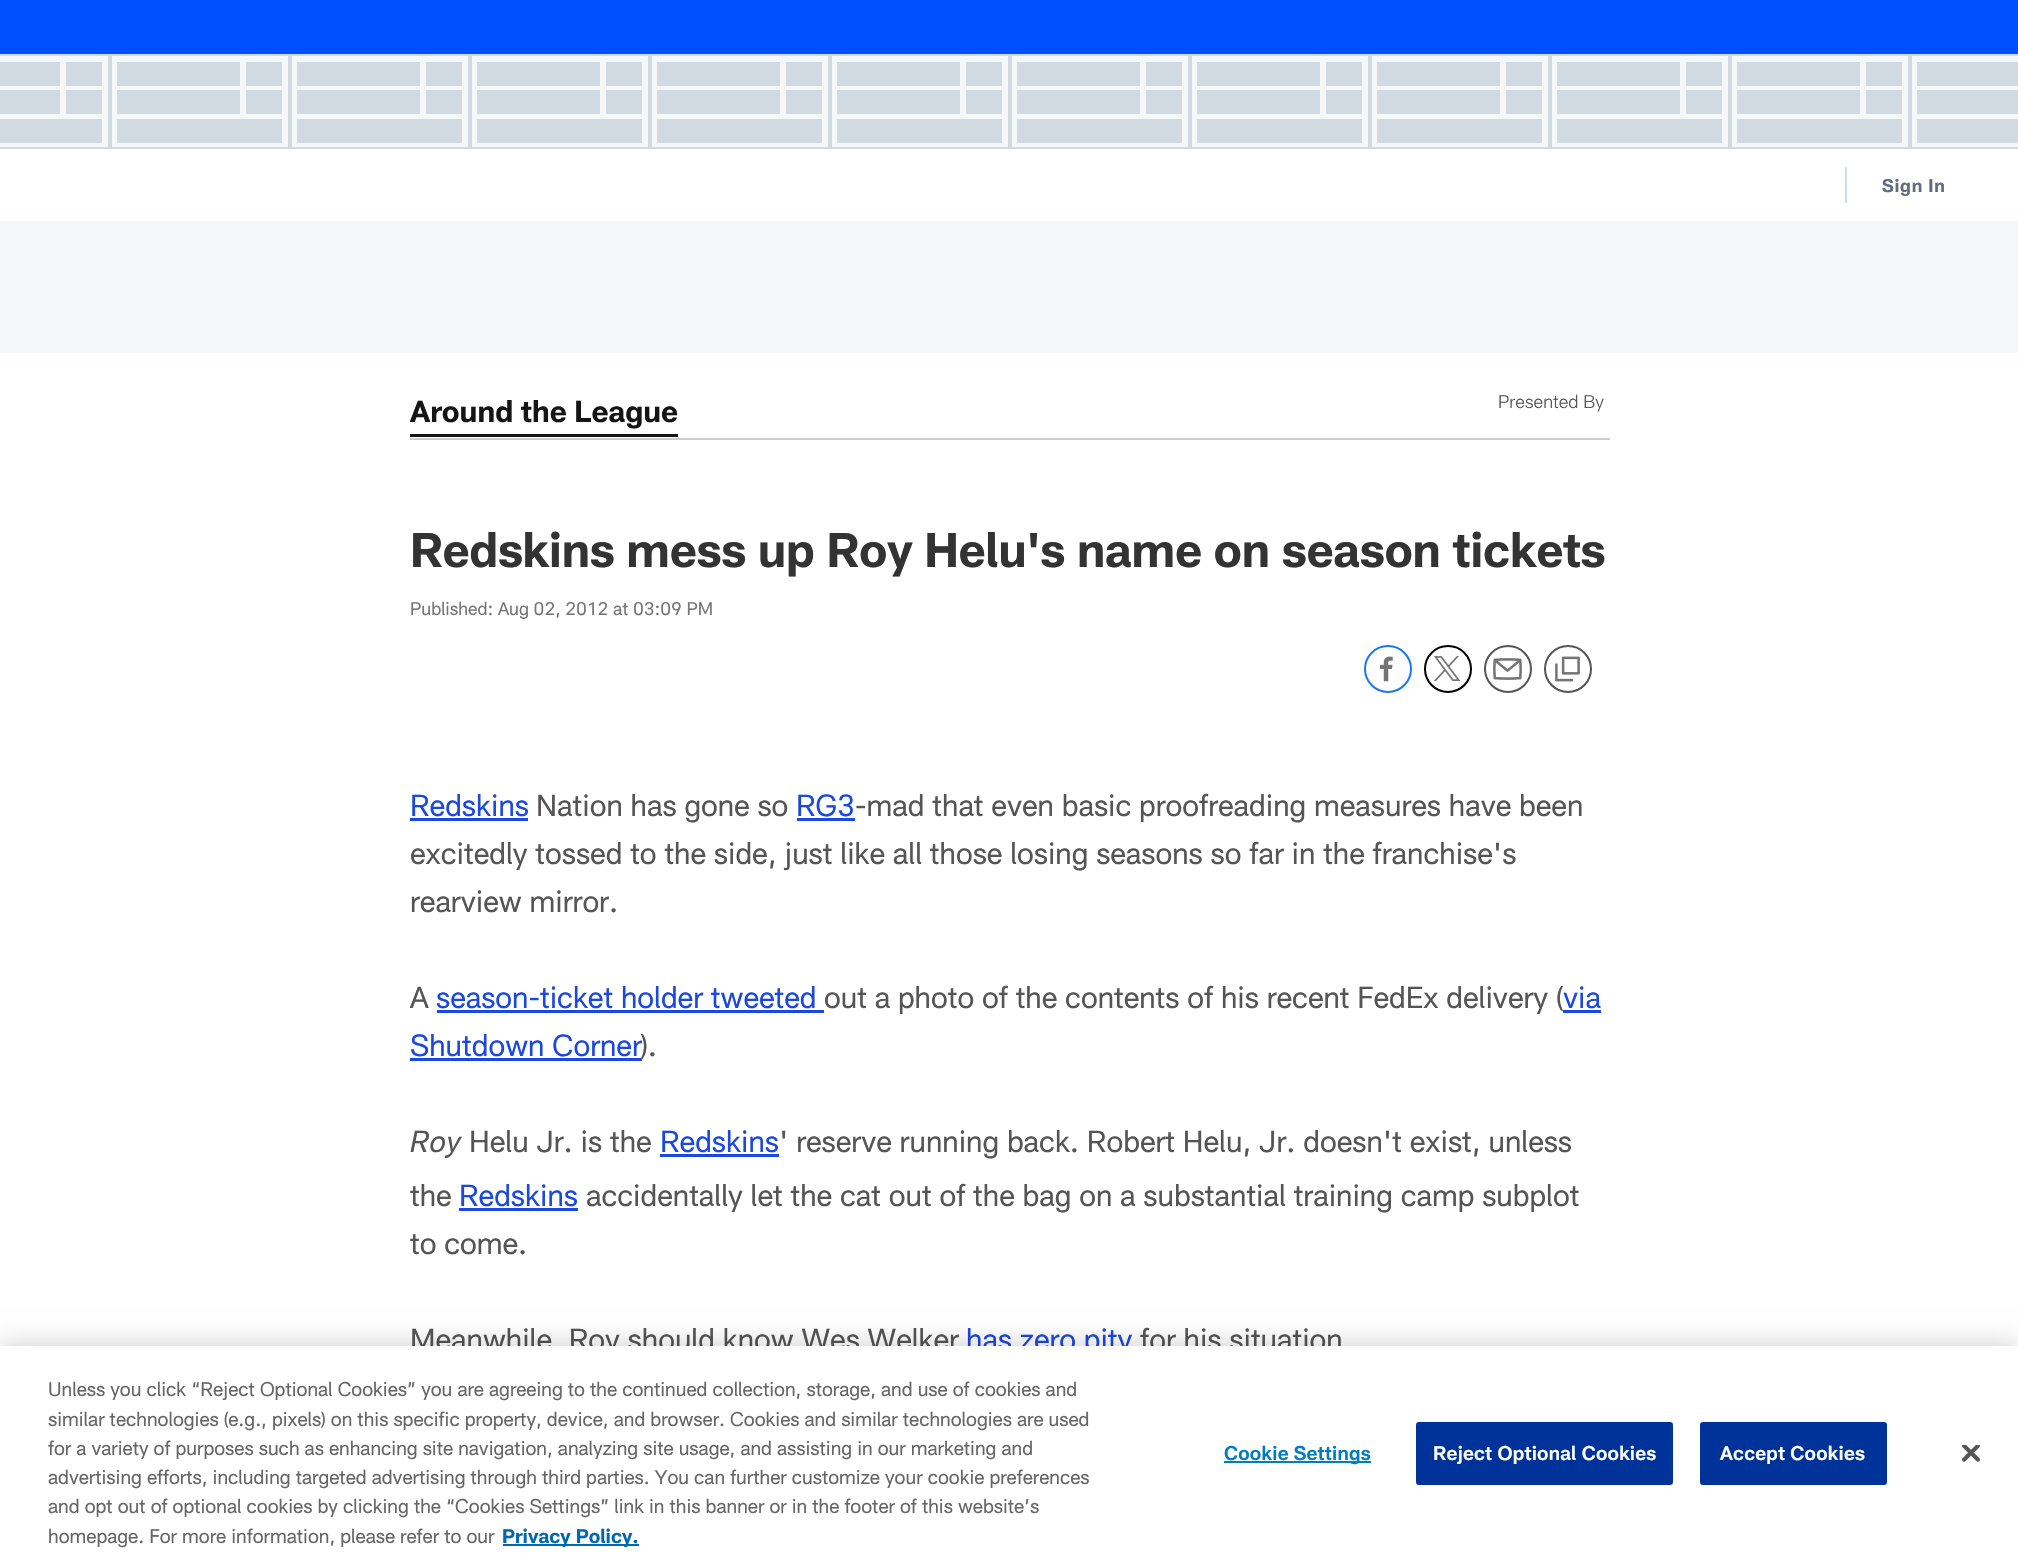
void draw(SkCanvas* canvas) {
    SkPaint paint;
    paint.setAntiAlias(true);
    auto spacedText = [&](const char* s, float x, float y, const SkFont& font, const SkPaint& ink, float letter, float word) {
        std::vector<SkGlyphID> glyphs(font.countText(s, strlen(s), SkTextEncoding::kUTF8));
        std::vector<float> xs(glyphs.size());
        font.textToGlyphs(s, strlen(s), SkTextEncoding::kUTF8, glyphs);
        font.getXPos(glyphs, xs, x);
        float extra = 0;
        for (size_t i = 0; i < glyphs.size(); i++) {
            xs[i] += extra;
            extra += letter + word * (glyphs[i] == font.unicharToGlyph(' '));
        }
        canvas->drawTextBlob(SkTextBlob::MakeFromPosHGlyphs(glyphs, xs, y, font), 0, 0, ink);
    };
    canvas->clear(0xFFF4F8F8);
    paint.setColor(0xFFFFFFFF);
    canvas->drawRect(SkRect::MakeXYWH(0, 149, 2018, 72), paint);
    paint.setColor(0xFF004FFF);
    canvas->drawRect(SkRect::MakeXYWH(0, 0, 2018, 54), paint);
    paint.setStyle(SkPaint::kStroke_Style);
    paint.setStrokeWidth(2);
    paint.setColor(0xFFD2DAE1);
    canvas->drawRect(SkRect::MakeXYWH(-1, 55, 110, 93), paint);
    paint.setStyle(SkPaint::kFill_Style);
    canvas->drawRect(SkRect::MakeXYWH(0, 62, 60, 24), paint);
    canvas->drawRect(SkRect::MakeXYWH(66, 62, 36, 24), paint);
    canvas->drawRect(SkRect::MakeXYWH(0, 90, 60, 24), paint);
    canvas->drawRect(SkRect::MakeXYWH(66, 90, 36, 24), paint);
    canvas->drawRect(SkRect::MakeXYWH(0, 119, 102, 24), paint);
    paint.setStyle(SkPaint::kStroke_Style);
    canvas->drawRect(SkRect::MakeXYWH(111, 55, 178, 93), paint);
    paint.setStyle(SkPaint::kFill_Style);
    canvas->drawRect(SkRect::MakeXYWH(117, 62, 123, 24), paint);
    canvas->drawRect(SkRect::MakeXYWH(246, 62, 36, 24), paint);
    canvas->drawRect(SkRect::MakeXYWH(117, 90, 123, 24), paint);
    canvas->drawRect(SkRect::MakeXYWH(246, 90, 36, 24), paint);
    canvas->drawRect(SkRect::MakeXYWH(117, 119, 165, 24), paint);
    paint.setStyle(SkPaint::kStroke_Style);
    canvas->drawRect(SkRect::MakeXYWH(291, 55, 178, 93), paint);
    paint.setStyle(SkPaint::kFill_Style);
    canvas->drawRect(SkRect::MakeXYWH(297, 62, 123, 24), paint);
    canvas->drawRect(SkRect::MakeXYWH(426, 62, 36, 24), paint);
    canvas->drawRect(SkRect::MakeXYWH(297, 90, 123, 24), paint);
    canvas->drawRect(SkRect::MakeXYWH(426, 90, 36, 24), paint);
    canvas->drawRect(SkRect::MakeXYWH(297, 119, 165, 24), paint);
    paint.setStyle(SkPaint::kStroke_Style);
    canvas->drawRect(SkRect::MakeXYWH(471, 55, 178, 93), paint);
    paint.setStyle(SkPaint::kFill_Style);
    canvas->drawRect(SkRect::MakeXYWH(477, 62, 123, 24), paint);
    canvas->drawRect(SkRect::MakeXYWH(606, 62, 36, 24), paint);
    canvas->drawRect(SkRect::MakeXYWH(477, 90, 123, 24), paint);
    canvas->drawRect(SkRect::MakeXYWH(606, 90, 36, 24), paint);
    canvas->drawRect(SkRect::MakeXYWH(477, 119, 165, 24), paint);
    paint.setStyle(SkPaint::kStroke_Style);
    canvas->drawRect(SkRect::MakeXYWH(651, 55, 178, 93), paint);
    paint.setStyle(SkPaint::kFill_Style);
    canvas->drawRect(SkRect::MakeXYWH(657, 62, 123, 24), paint);
    canvas->drawRect(SkRect::MakeXYWH(786, 62, 36, 24), paint);
    canvas->drawRect(SkRect::MakeXYWH(657, 90, 123, 24), paint);
    canvas->drawRect(SkRect::MakeXYWH(786, 90, 36, 24), paint);
    canvas->drawRect(SkRect::MakeXYWH(657, 119, 165, 24), paint);
    paint.setStyle(SkPaint::kStroke_Style);
    canvas->drawRect(SkRect::MakeXYWH(831, 55, 178, 93), paint);
    paint.setStyle(SkPaint::kFill_Style);
    canvas->drawRect(SkRect::MakeXYWH(837, 62, 123, 24), paint);
    canvas->drawRect(SkRect::MakeXYWH(966, 62, 36, 24), paint);
    canvas->drawRect(SkRect::MakeXYWH(837, 90, 123, 24), paint);
    canvas->drawRect(SkRect::MakeXYWH(966, 90, 36, 24), paint);
    canvas->drawRect(SkRect::MakeXYWH(837, 119, 165, 24), paint);
    paint.setStyle(SkPaint::kStroke_Style);
    canvas->drawRect(SkRect::MakeXYWH(1011, 55, 178, 93), paint);
    paint.setStyle(SkPaint::kFill_Style);
    canvas->drawRect(SkRect::MakeXYWH(1017, 62, 123, 24), paint);
    canvas->drawRect(SkRect::MakeXYWH(1146, 62, 36, 24), paint);
    canvas->drawRect(SkRect::MakeXYWH(1017, 90, 123, 24), paint);
    canvas->drawRect(SkRect::MakeXYWH(1146, 90, 36, 24), paint);
    canvas->drawRect(SkRect::MakeXYWH(1017, 119, 165, 24), paint);
    paint.setStyle(SkPaint::kStroke_Style);
    canvas->drawRect(SkRect::MakeXYWH(1191, 55, 178, 93), paint);
    paint.setStyle(SkPaint::kFill_Style);
    canvas->drawRect(SkRect::MakeXYWH(1197, 62, 123, 24), paint);
    canvas->drawRect(SkRect::MakeXYWH(1326, 62, 36, 24), paint);
    canvas->drawRect(SkRect::MakeXYWH(1197, 90, 123, 24), paint);
    canvas->drawRect(SkRect::MakeXYWH(1326, 90, 36, 24), paint);
    canvas->drawRect(SkRect::MakeXYWH(1197, 119, 165, 24), paint);
    paint.setStyle(SkPaint::kStroke_Style);
    canvas->drawRect(SkRect::MakeXYWH(1371, 55, 178, 93), paint);
    paint.setStyle(SkPaint::kFill_Style);
    canvas->drawRect(SkRect::MakeXYWH(1377, 62, 123, 24), paint);
    canvas->drawRect(SkRect::MakeXYWH(1506, 62, 36, 24), paint);
    canvas->drawRect(SkRect::MakeXYWH(1377, 90, 123, 24), paint);
    canvas->drawRect(SkRect::MakeXYWH(1506, 90, 36, 24), paint);
    canvas->drawRect(SkRect::MakeXYWH(1377, 119, 165, 24), paint);
    paint.setStyle(SkPaint::kStroke_Style);
    canvas->drawRect(SkRect::MakeXYWH(1551, 55, 178, 93), paint);
    paint.setStyle(SkPaint::kFill_Style);
    canvas->drawRect(SkRect::MakeXYWH(1557, 62, 123, 24), paint);
    canvas->drawRect(SkRect::MakeXYWH(1686, 62, 36, 24), paint);
    canvas->drawRect(SkRect::MakeXYWH(1557, 90, 123, 24), paint);
    canvas->drawRect(SkRect::MakeXYWH(1686, 90, 36, 24), paint);
    canvas->drawRect(SkRect::MakeXYWH(1557, 119, 165, 24), paint);
    paint.setStyle(SkPaint::kStroke_Style);
    canvas->drawRect(SkRect::MakeXYWH(1731, 55, 178, 93), paint);
    paint.setStyle(SkPaint::kFill_Style);
    canvas->drawRect(SkRect::MakeXYWH(1737, 62, 123, 24), paint);
    canvas->drawRect(SkRect::MakeXYWH(1866, 62, 36, 24), paint);
    canvas->drawRect(SkRect::MakeXYWH(1737, 90, 123, 24), paint);
    canvas->drawRect(SkRect::MakeXYWH(1866, 90, 36, 24), paint);
    canvas->drawRect(SkRect::MakeXYWH(1737, 119, 165, 24), paint);
    paint.setStyle(SkPaint::kStroke_Style);
    canvas->drawRect(SkRect::MakeXYWH(1911, 55, 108, 93), paint);
    paint.setStyle(SkPaint::kFill_Style);
    canvas->drawRect(SkRect::MakeXYWH(1917, 62, 101, 24), paint);
    canvas->drawRect(SkRect::MakeXYWH(1917, 90, 101, 24), paint);
    canvas->drawRect(SkRect::MakeXYWH(1917, 119, 101, 24), paint);
    canvas->drawRect(SkRect::MakeXYWH(1845, 167, 2, 36), paint);
    SkFont font1(fontMgr->matchFamilyStyle("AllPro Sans", SkFontStyle::Bold()), 18);
    font1.setSubpixel(true);
    paint.setColor(0xFF626C80);
    spacedText("Sign In", 1882, 192, font1, paint, 0.75f, 0);
    paint.setColor(0xFFFFFFFF);
    canvas->drawRect(SkRect::MakeXYWH(0, 353, 2018, 993), paint);
    paint.setColor(0xFFCCCCCC);
    canvas->drawRect(SkRect::MakeXYWH(410, 438, 1200, 2), paint);
    paint.setColor(0xFF151515);
    canvas->drawRect(SkRect::MakeXYWH(410, 434, 268, 3), paint);
    SkFont font2(fontMgr->matchFamilyStyle("AllPro Sans", SkFontStyle::Bold()), 30);
    font2.setSubpixel(true);
    canvas->drawString("Around the League", 410, 422, font2, paint);
    SkFont font3(fontMgr->matchFamilyStyle("AllPro Sans", SkFontStyle(300, SkFontStyle::kNormal_Width, SkFontStyle::kUpright_Slant)), 18);
    font3.setSubpixel(true);
    paint.setColor(0xFF555555);
    canvas->drawString("Presented By", 1498, 408, font3, paint);
    SkFont font4(fontMgr->matchFamilyStyle("AllPro Sans", SkFontStyle::Bold()), 48);
    font4.setSubpixel(true);
    paint.setColor(0xFF333333);
    spacedText("Redskins mess up Roy Helu's name on season tickets", 410, 567, font4, paint, -0.3f, 0);
    SkFont font5(fontMgr->matchFamilyStyle("AllPro Sans", SkFontStyle::Normal()), 18);
    font5.setSubpixel(true);
    paint.setColor(0xFF757575);
    canvas->drawString("Published: Aug 02, 2012 at 03:09 PM", 410, 615, font5, paint);
    paint.setStyle(SkPaint::kStroke_Style);
    paint.setColor(0xFF1877F2);
    canvas->drawCircle(1388, 669, 23, paint);
    canvas->drawImageRect(SkImages::DeferredFromEncodedData(SkData::MakeFromFileName("img1.png")), SkRect::MakeXYWH(1380, 656, 13, 26), SkSamplingOptions());
    paint.setColor(0xFF000000);
    canvas->drawCircle(1448, 669, 23, paint);
    canvas->drawImageRect(SkImages::DeferredFromEncodedData(SkData::MakeFromFileName("img2.png")), SkRect::MakeXYWH(1433, 656, 28, 25), SkSamplingOptions());
    paint.setColor(0xFF555555);
    canvas->drawCircle(1508, 669, 23, paint);
    canvas->drawImageRect(SkImages::DeferredFromEncodedData(SkData::MakeFromFileName("img3.png")), SkRect::MakeXYWH(1493, 658, 29, 22), SkSamplingOptions());
    canvas->drawCircle(1568, 669, 23, paint);
    canvas->drawImageRect(SkImages::DeferredFromEncodedData(SkData::MakeFromFileName("img4.png")), SkRect::MakeXYWH(1555, 656, 25, 26), SkSamplingOptions());
    SkFont font6(fontMgr->matchFamilyStyle("AllPro Sans", SkFontStyle::Normal()), 30);
    font6.setSubpixel(true);
    paint.setStyle(SkPaint::kFill_Style);
    paint.setColor(0xFF1B48E0);
    canvas->drawString("Redskins", 410, 816, font6, paint);
    canvas->drawRect(SkRect::MakeXYWH(410, 818, 118, 3), paint);
    paint.setColor(0xFF555555);
    canvas->drawString("Nation has gone so", 536, 816, font6, paint);
    paint.setColor(0xFF1B48E0);
    canvas->drawString("RG3", 796, 816, font6, paint);
    canvas->drawRect(SkRect::MakeXYWH(797, 818, 58, 3), paint);
    paint.setColor(0xFF555555);
    canvas->drawString("-mad that even basic proofreading measures have been", 855, 816, font6, paint);
    canvas->drawString("excitedly tossed to the side, just like all those losing seasons so far in the franchise's", 410, 864, font6, paint);
    canvas->drawString("rearview mirror.", 410, 912, font6, paint);
    canvas->drawString("A", 410, 1008, font6, paint);
    paint.setColor(0xFF1B48E0);
    canvas->drawString("season-ticket holder tweeted", 436, 1008, font6, paint);
    canvas->drawRect(SkRect::MakeXYWH(437, 1010, 387, 3), paint);
    paint.setColor(0xFF555555);
    canvas->drawString("out a photo of the contents of his recent FedEx delivery (", 824, 1008, font6, paint);
    paint.setColor(0xFF1B48E0);
    canvas->drawString("via", 1563, 1008, font6, paint);
    canvas->drawRect(SkRect::MakeXYWH(1563, 1010, 38, 3), paint);
    canvas->drawString("Shutdown Corner", 410, 1056, font6, paint);
    canvas->drawRect(SkRect::MakeXYWH(410, 1058, 232, 3), paint);
    paint.setColor(0xFF555555);
    canvas->drawString(").", 641, 1056, font6, paint);
    SkFont font7(fontMgr->matchFamilyStyle("AllPro Sans", SkFontStyle::Italic()), 30);
    font7.setSubpixel(true);
    canvas->drawString("Roy", 410, 1152, font7, paint);
    canvas->drawString("Helu Jr. is the", 469, 1152, font6, paint);
    paint.setColor(0xFF1B48E0);
    canvas->drawString("Redskins", 660, 1152, font6, paint);
    canvas->drawRect(SkRect::MakeXYWH(660, 1154, 119, 3), paint);
    paint.setColor(0xFF555555);
    canvas->drawString("' reserve running back. Robert Helu, Jr. doesn't exist, unless", 779, 1152, font6, paint);
    canvas->drawString("the", 410, 1206, font6, paint);
    paint.setColor(0xFF1B48E0);
    canvas->drawString("Redskins", 459, 1206, font6, paint);
    canvas->drawRect(SkRect::MakeXYWH(459, 1208, 119, 3), paint);
    paint.setColor(0xFF555555);
    canvas->drawString("accidentally let the cat out of the bag on a substantial training camp subplot", 586, 1206, font6, paint);
    canvas->drawString("to come.", 410, 1254, font6, paint);
    canvas->drawString("Meanwhile, Roy should know Wes Welker", 410, 1350, font6, paint);
    paint.setColor(0xFF1B48E0);
    canvas->drawString("has zero pity", 966, 1350, font6, paint);
    paint.setColor(0xFF555555);
    canvas->drawString("for his situation", 1140, 1350, font6, paint);
    paint.setColor(0x33000000);
    paint.setMaskFilter(SkMaskFilter::MakeBlur(kNormal_SkBlurStyle, 13.5f));
    canvas->drawRect(SkRect::MakeXYWH(0, 1346, 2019, 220), paint);
    paint.setMaskFilter(nullptr);
    paint.setColor(0xFFFFFFFF);
    canvas->drawRect(SkRect::MakeXYWH(0, 1346, 2018, 219), paint);
    SkFont font8(fontMgr->matchFamilyStyle("AllPro Sans", SkFontStyle::Normal()), 19.5f);
    font8.setSubpixel(true);
    paint.setColor(0xFF666666);
    canvas->drawString("Unless you click “Reject Optional Cookies” you are agreeing to the continued collection, storage, and use of cookies and", 48, 1396, font8, paint);
    canvas->drawString("similar technologies (e.g., pixels) on this specific property, device, and browser. Cookies and similar technologies are used", 48, 1426, font8, paint);
    canvas->drawString("for a variety of purposes such as enhancing site navigation, analyzing site usage, and assisting in our marketing and", 48, 1455, font8, paint);
    canvas->drawString("advertising efforts, including targeted advertising through third parties. You can further customize your cookie preferences", 48, 1484, font8, paint);
    canvas->drawString("and opt out of optional cookies by clicking the “Cookies Settings” link in this banner or in the footer of this website’s", 48, 1513, font8, paint);
    canvas->drawString("homepage. For more information, please refer to our", 48, 1543, font8, paint);
    paint.setColor(0xFF0067B1);
    canvas->drawRect(SkRect::MakeXYWH(503, 1544, 136, 2), paint);
    SkFont font9(fontMgr->matchFamilyStyle("AllPro Sans", SkFontStyle::Bold()), 19.5f);
    font9.setSubpixel(true);
    canvas->drawString("Privacy Policy.", 502, 1543, font9, paint);
    paint.setColor(0xFF007DC3);
    canvas->drawRect(SkRect::MakeXYWH(1224, 1461, 147, 2), paint);
    SkFont font10(fontMgr->matchFamilyStyle("AllPro Sans", SkFontStyle(600, SkFontStyle::kNormal_Width, SkFontStyle::kUpright_Slant)), 19.5f);
    font10.setSubpixel(true);
    spacedText("Cookie Settings", 1224, 1460, font10, paint, 0.2f, 0);
    paint.setColor(0xFF003399);
    canvas->drawRoundRect(SkRect::MakeXYWH(1417, 1423, 255, 61), 2, 2, paint);
    paint.setStyle(SkPaint::kStroke_Style);
    canvas->drawRoundRect(SkRect::MakeXYWH(1417, 1423, 255, 61), 2, 2, paint);
    paint.setStyle(SkPaint::kFill_Style);
    paint.setColor(0xFFFFFFFF);
    spacedText("Reject Optional Cookies", 1433, 1460, font10, paint, 0.2f, 0);
    paint.setColor(0xFF003399);
    canvas->drawRoundRect(SkRect::MakeXYWH(1701, 1423, 185, 61), 2, 2, paint);
    paint.setStyle(SkPaint::kStroke_Style);
    canvas->drawRoundRect(SkRect::MakeXYWH(1701, 1423, 185, 61), 2, 2, paint);
    paint.setStyle(SkPaint::kFill_Style);
    paint.setColor(0xFFFFFFFF);
    spacedText("Accept Cookies", 1720, 1460, font10, paint, 0.2f, 0);
    canvas->drawImageRect(SkImages::DeferredFromEncodedData(SkData::MakeFromFileName("img5.png")), SkRect::MakeXYWH(1962, 1445, 18, 17), SkSamplingOptions());
}
